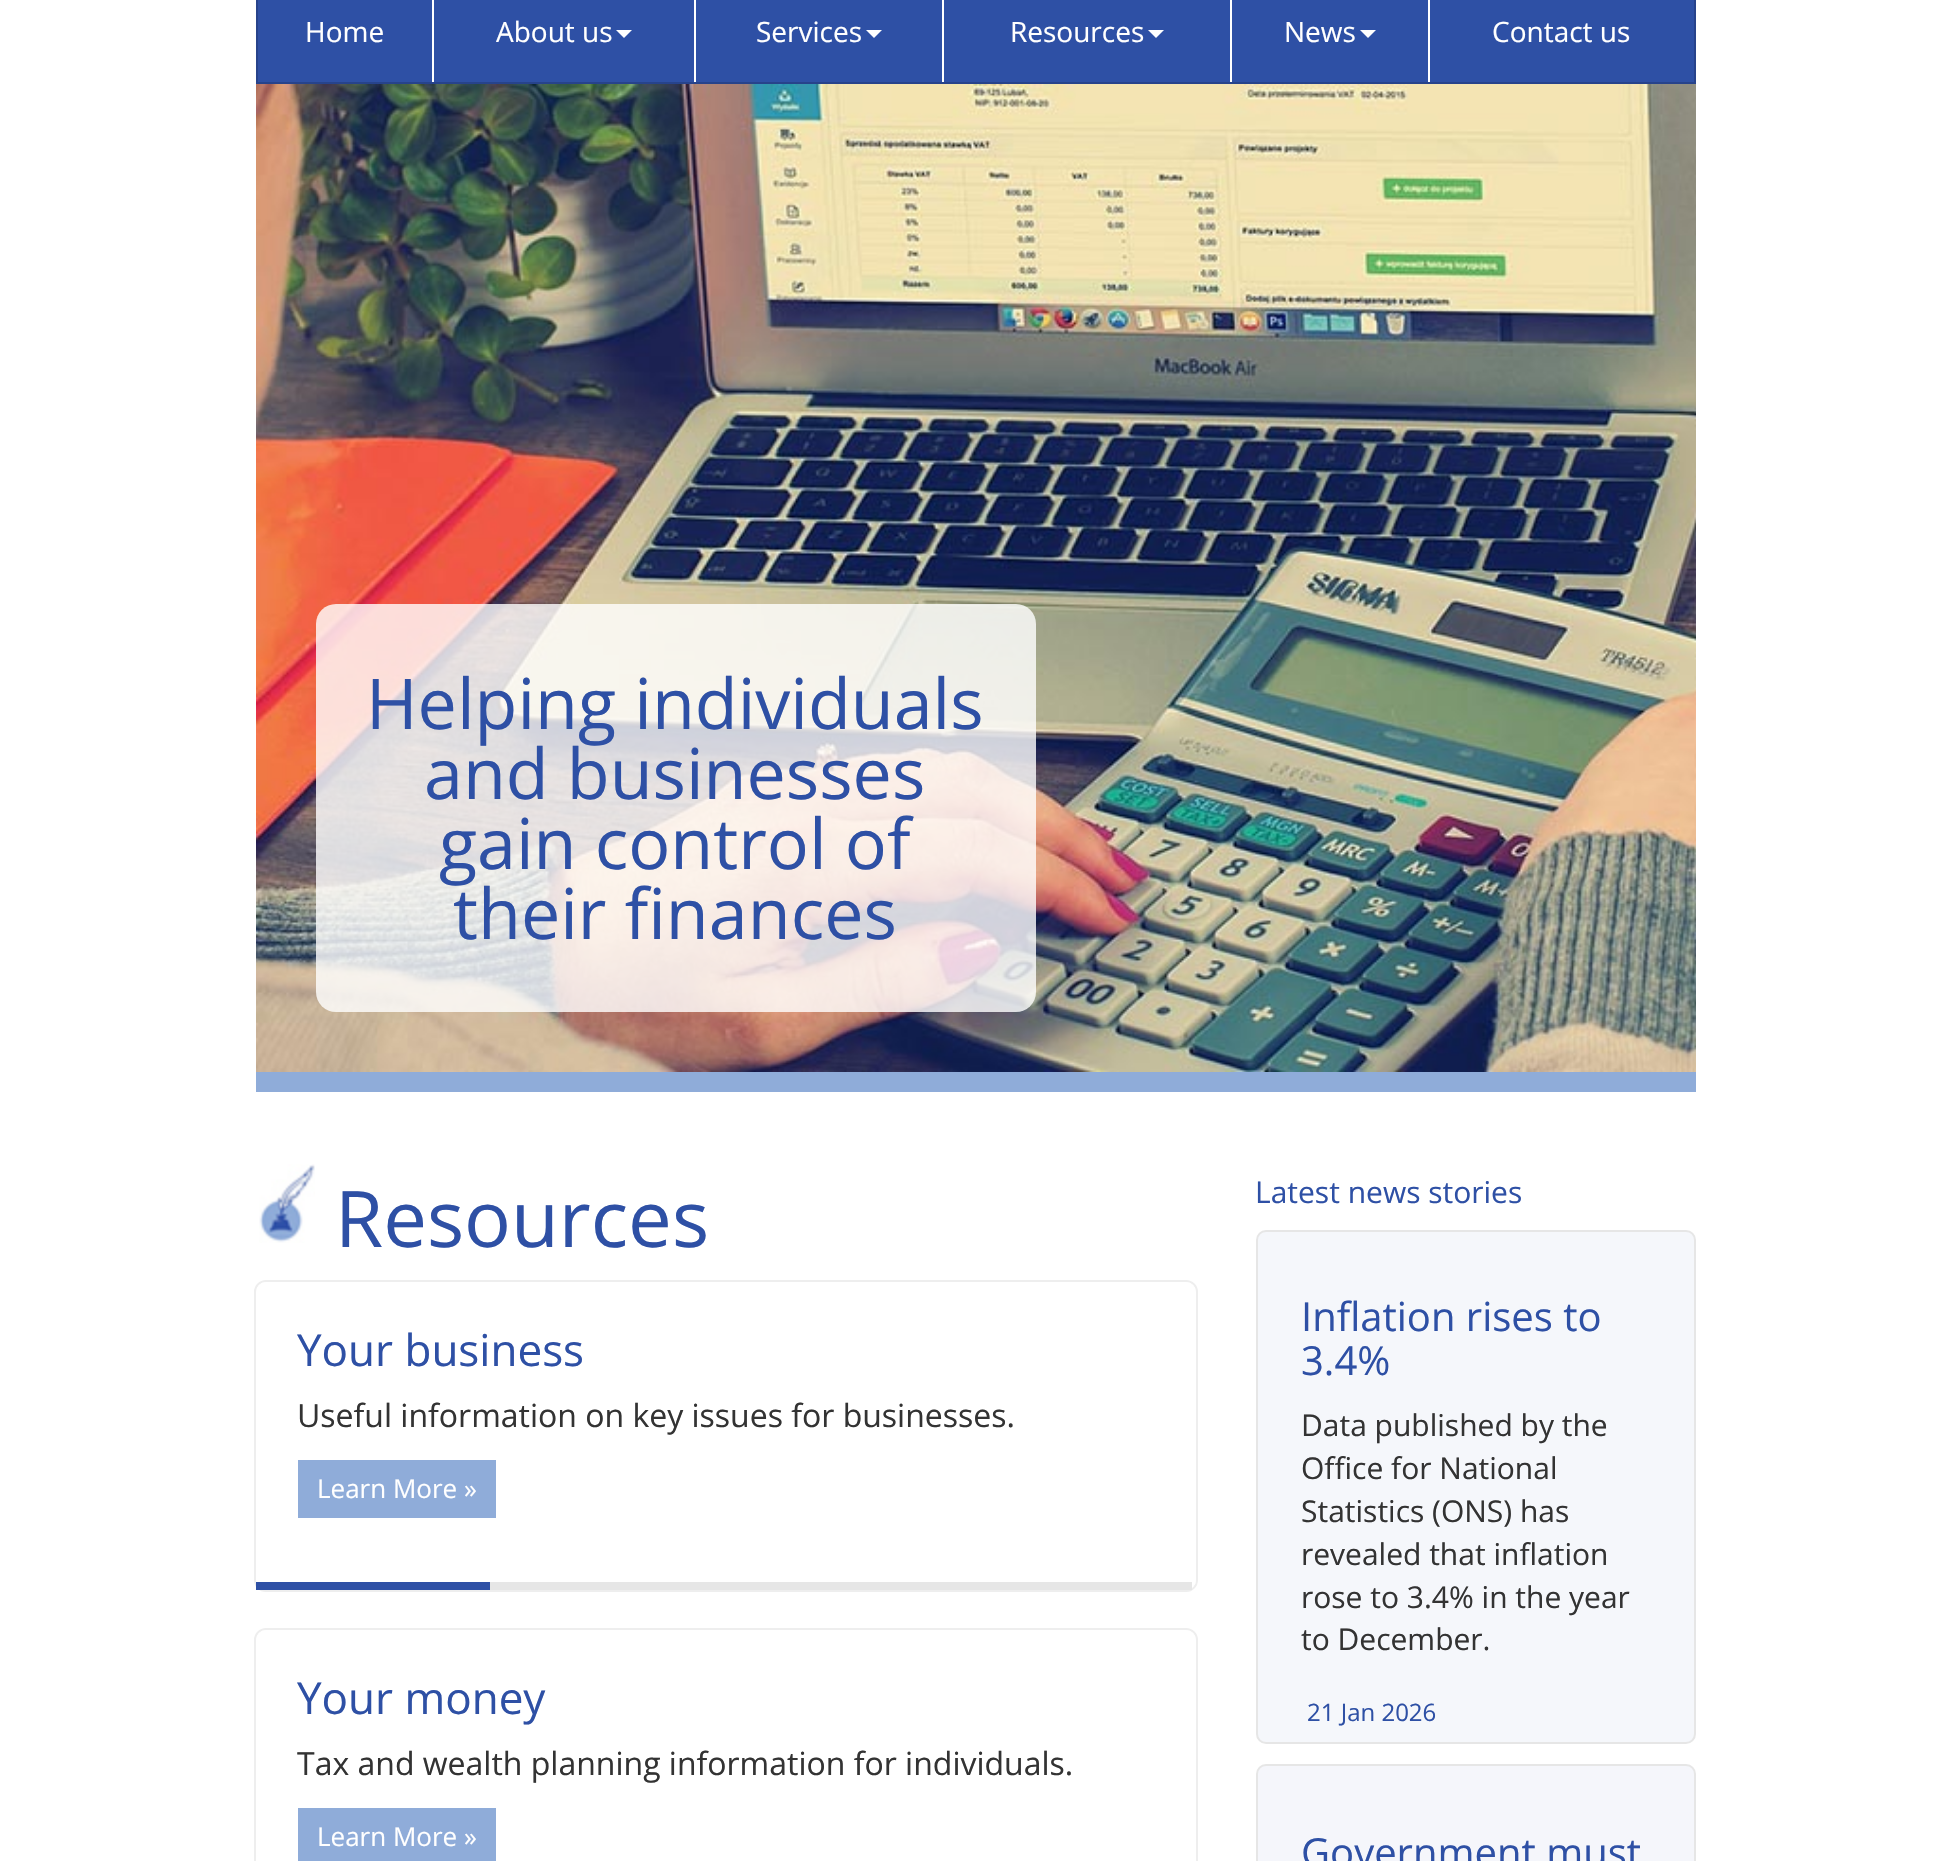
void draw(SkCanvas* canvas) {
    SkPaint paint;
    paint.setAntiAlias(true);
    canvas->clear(0xFFFFFFFF);
    paint.setColor(0xFF2E50A5);
    canvas->drawRect(SkRect::MakeXYWH(257, -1, 1438, 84), paint);
    paint.setStyle(SkPaint::kStroke_Style);
    paint.setStrokeWidth(2);
    paint.setColor(0xFF27438B);
    canvas->drawRect(SkRect::MakeXYWH(257, -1, 1438, 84), paint);
    SkFont font1(fontMgr->matchFamilyStyle("Open Sans", SkFontStyle::Normal()), 28);
    font1.setSubpixel(true);
    paint.setStyle(SkPaint::kFill_Style);
    paint.setColor(0xFFFFFFFF);
    canvas->drawString("Home", 305, 42, font1, paint);
    canvas->drawRect(SkRect::MakeXYWH(432, 0, 2, 82), paint);
    canvas->drawString("About us", 496, 42, font1, paint);
    canvas->drawPath(SkPathBuilder().moveTo(616, 30).lineTo(632, 30).lineTo(624, 38).close().detach(), paint);
    canvas->drawRect(SkRect::MakeXYWH(694, 0, 2, 82), paint);
    canvas->drawString("Services", 756, 42, font1, paint);
    canvas->drawPath(SkPathBuilder().moveTo(866, 30).lineTo(882, 30).lineTo(874, 38).close().detach(), paint);
    canvas->drawRect(SkRect::MakeXYWH(942, 0, 2, 82), paint);
    canvas->drawString("Resources", 1010, 42, font1, paint);
    canvas->drawPath(SkPathBuilder().moveTo(1148, 30).lineTo(1164, 30).lineTo(1156, 38).close().detach(), paint);
    canvas->drawRect(SkRect::MakeXYWH(1230, 0, 2, 82), paint);
    canvas->drawString("News", 1284, 42, font1, paint);
    canvas->drawPath(SkPathBuilder().moveTo(1360, 30).lineTo(1376, 30).lineTo(1368, 38).close().detach(), paint);
    canvas->drawRect(SkRect::MakeXYWH(1428, 0, 2, 82), paint);
    canvas->drawString("Contact us", 1492, 42, font1, paint);
    canvas->drawImageRect(SkImages::DeferredFromEncodedData(SkData::MakeFromFileName("img1.png")), SkRect::MakeXYWH(256, 84, 1440, 988), SkSamplingOptions());
    paint.setColor(0xFF8FACD9);
    canvas->drawRect(SkRect::MakeXYWH(256, 1072, 1440, 20), paint);
    paint.setColor(0xCCFFFFFF);
    canvas->drawRoundRect(SkRect::MakeXYWH(316, 604, 720, 408), 20, 20, paint);
    SkFont font2(fontMgr->matchFamilyStyle("Open Sans", SkFontStyle::Normal()), 70);
    font2.setSubpixel(true);
    paint.setColor(0xFF2E50A5);
    canvas->drawString("Helping individuals", 366, 729, font2, paint);
    canvas->drawString("and businesses", 424, 799, font2, paint);
    canvas->drawString("gain control of", 439, 869, font2, paint);
    canvas->drawString("their finances", 453, 939, font2, paint);
    canvas->drawImageRect(SkImages::DeferredFromEncodedData(SkData::MakeFromFileName("img2.png")), SkRect::MakeXYWH(259, 1164, 56, 79), SkSamplingOptions());
    SkFont font3(fontMgr->matchFamilyStyle("Open Sans", SkFontStyle::Normal()), 78);
    font3.setSubpixel(true);
    canvas->drawString("Resources", 335, 1247, font3, paint);
    paint.setStyle(SkPaint::kStroke_Style);
    paint.setColor(0xFFEEEEEE);
    canvas->drawRoundRect(SkRect::MakeXYWH(255, 1281, 942, 310), 11, 11, paint);
    paint.setStyle(SkPaint::kFill_Style);
    paint.setColor(0xFFFFFFFF);
    canvas->drawRoundRect(SkRect::MakeXYWH(256, 1282, 940, 308), 10, 10, paint);
    paint.setColor(0xFFE6E6E6);
    canvas->drawRect(SkRect::MakeXYWH(490, 1582, 702, 8), paint);
    SkFont font4(fontMgr->matchFamilyStyle("Open Sans", SkFontStyle::Normal()), 44);
    font4.setSubpixel(true);
    paint.setColor(0xFF2E50A5);
    canvas->drawString("Your business", 297, 1366, font4, paint);
    SkFont font5(fontMgr->matchFamilyStyle("Open Sans", SkFontStyle::Normal()), 32);
    font5.setSubpixel(true);
    paint.setColor(0xFF333333);
    canvas->drawString("Useful information on key issues for businesses.", 297, 1427, font5, paint);
    paint.setColor(0xFF8FACD9);
    canvas->drawRect(SkRect::MakeXYWH(298, 1460, 198, 58), paint);
    SkFont font6(fontMgr->matchFamilyStyle("Open Sans", SkFontStyle::Normal()), 26);
    font6.setSubpixel(true);
    paint.setColor(0xFFFFFFFF);
    canvas->drawString("Learn More »", 317, 1498, font6, paint);
    paint.setColor(0xFF2E50A5);
    canvas->drawRect(SkRect::MakeXYWH(256, 1582, 234, 8), paint);
    paint.setStyle(SkPaint::kStroke_Style);
    paint.setColor(0xFFEEEEEE);
    canvas->drawRoundRect(SkRect::MakeXYWH(255, 1629, 942, 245), 11, 11, paint);
    paint.setStyle(SkPaint::kFill_Style);
    paint.setColor(0xFFFFFFFF);
    canvas->drawRoundRect(SkRect::MakeXYWH(256, 1630, 940, 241), 10, 10, paint);
    paint.setColor(0xFF2E50A5);
    canvas->drawString("Your money", 297, 1714, font4, paint);
    paint.setColor(0xFF333333);
    canvas->drawString("Tax and wealth planning information for individuals.", 297, 1775, font5, paint);
    paint.setColor(0xFF8FACD9);
    canvas->drawRect(SkRect::MakeXYWH(298, 1808, 198, 53), paint);
    paint.setColor(0xFFFFFFFF);
    canvas->drawString("Learn More »", 317, 1846, font6, paint);
    SkFont font7(fontMgr->matchFamilyStyle("Open Sans", SkFontStyle::Normal()), 30);
    font7.setSubpixel(true);
    paint.setColor(0xFF2E50A5);
    canvas->drawString("Latest news stories", 1255, 1203, font7, paint);
    paint.setColor(0xFFF5F7FB);
    canvas->drawRoundRect(SkRect::MakeXYWH(1257, 1231, 438, 512), 9, 9, paint);
    paint.setStyle(SkPaint::kStroke_Style);
    paint.setColor(0xFFE6E6E6);
    canvas->drawRoundRect(SkRect::MakeXYWH(1257, 1231, 438, 512), 9, 9, paint);
    SkFont font8(fontMgr->matchFamilyStyle("Open Sans", SkFontStyle::Normal()), 40);
    font8.setSubpixel(true);
    paint.setStyle(SkPaint::kFill_Style);
    paint.setColor(0xFF2E50A5);
    canvas->drawString("Inflation rises to", 1301, 1331, font8, paint);
    canvas->drawString("3.4%", 1301, 1375, font8, paint);
    paint.setColor(0xFF333333);
    canvas->drawString("Data published by the", 1301, 1436, font7, paint);
    canvas->drawString("Office for National", 1301, 1479, font7, paint);
    canvas->drawString("Statistics (ONS) has", 1301, 1522, font7, paint);
    canvas->drawString("revealed that inflation", 1301, 1565, font7, paint);
    canvas->drawString("rose to 3.4% in the year", 1301, 1608, font7, paint);
    canvas->drawString("to December.", 1301, 1650, font7, paint);
    SkFont font9(fontMgr->matchFamilyStyle("Open Sans", SkFontStyle::Normal()), 24);
    font9.setSubpixel(true);
    paint.setColor(0xFF2E50A5);
    canvas->drawString("21 Jan 2026", 1307, 1721, font9, paint);
    paint.setColor(0xFFF5F6FB);
    canvas->drawRoundRect(SkRect::MakeXYWH(1257, 1765, 438, 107), 9, 9, paint);
    paint.setStyle(SkPaint::kStroke_Style);
    paint.setColor(0xFFE6E6E6);
    canvas->drawRoundRect(SkRect::MakeXYWH(1257, 1765, 438, 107), 9, 9, paint);
    paint.setStyle(SkPaint::kFill_Style);
    paint.setColor(0xFF2E50A5);
    canvas->drawString("Government must", 1301, 1867, font8, paint);
}
